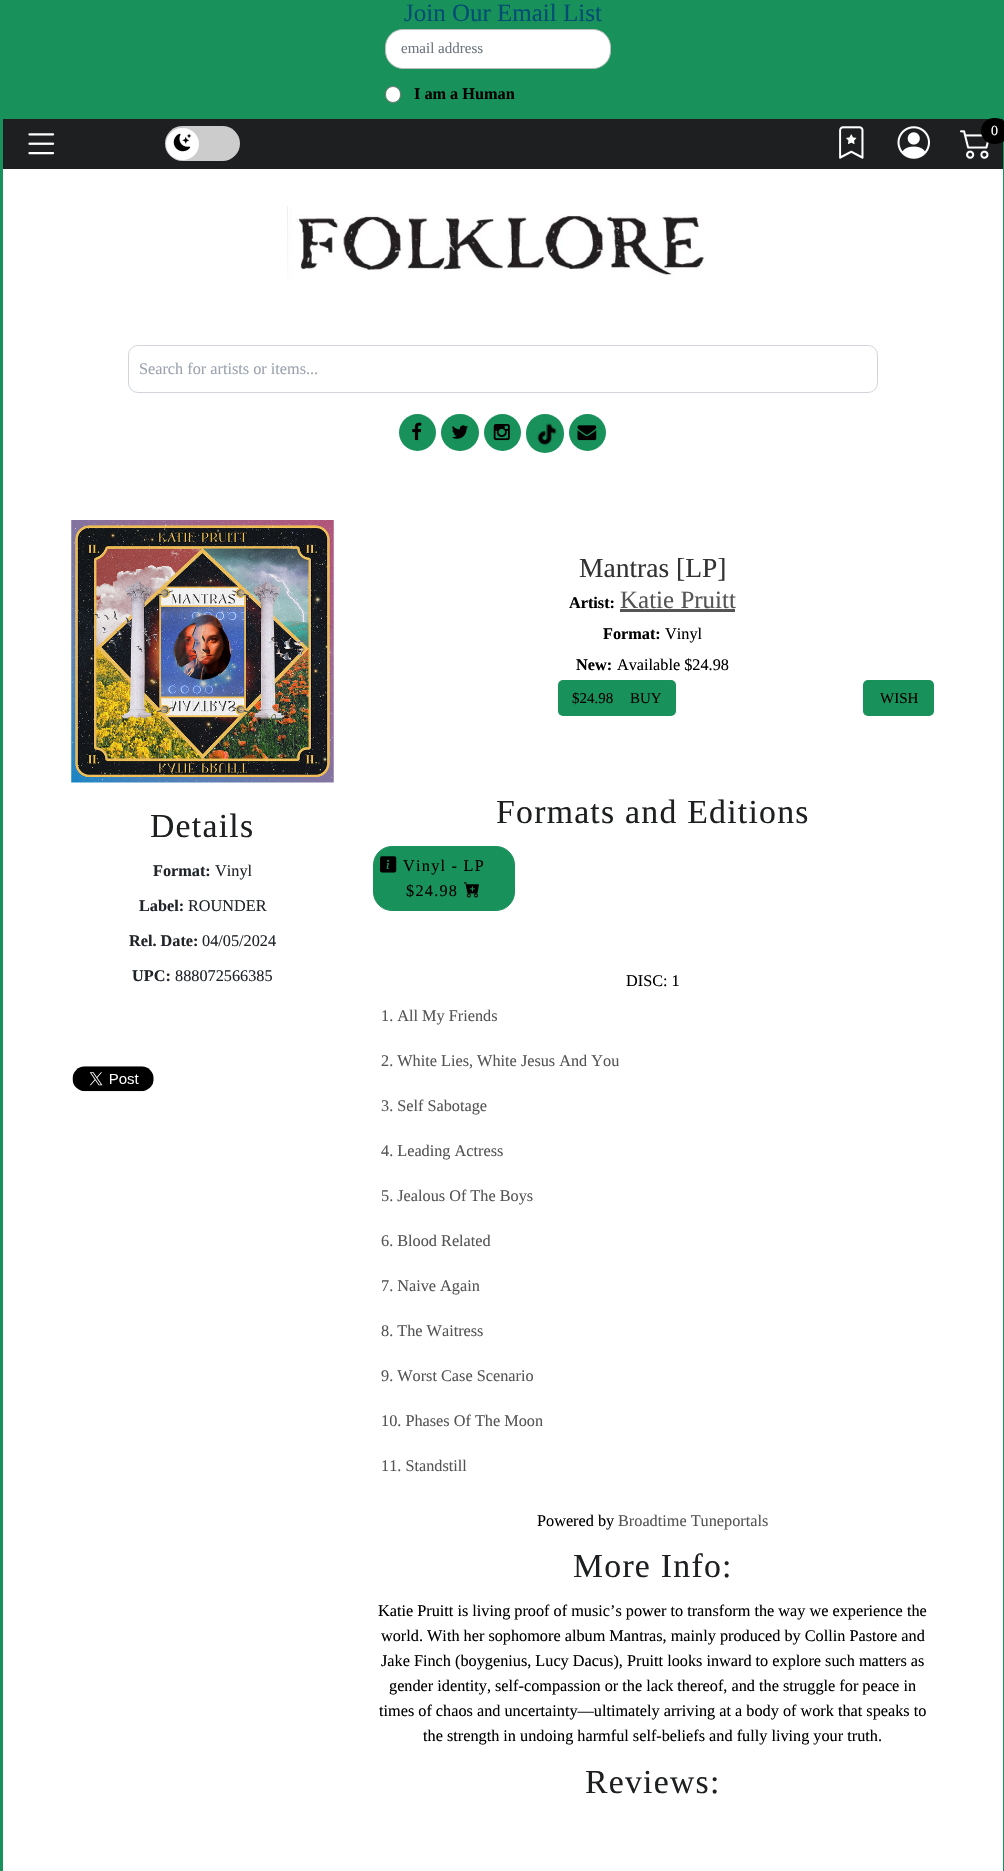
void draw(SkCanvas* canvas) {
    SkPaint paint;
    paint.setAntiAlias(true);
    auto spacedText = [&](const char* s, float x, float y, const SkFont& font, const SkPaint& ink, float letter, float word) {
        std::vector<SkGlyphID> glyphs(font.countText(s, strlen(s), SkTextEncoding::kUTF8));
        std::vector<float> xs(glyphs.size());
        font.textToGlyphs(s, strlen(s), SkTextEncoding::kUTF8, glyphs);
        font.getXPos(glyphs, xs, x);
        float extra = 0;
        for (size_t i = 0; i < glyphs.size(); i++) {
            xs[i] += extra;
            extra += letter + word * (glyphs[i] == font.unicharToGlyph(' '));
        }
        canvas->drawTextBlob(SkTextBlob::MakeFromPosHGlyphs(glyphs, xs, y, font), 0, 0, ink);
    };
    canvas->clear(0xFF19915B);
    SkFont font1(fontMgr->matchFamilyStyle("Liberation Serif", SkFontStyle::Normal()), 25);
    font1.setSubpixel(true);
    paint.setColor(0xFF004D72);
    canvas->drawString("Join Our Email List", 404, 21, font1, paint);
    paint.setColor(0xFFFFFFFF);
    canvas->drawRoundRect(SkRect::MakeXYWH(385.5f, 29.5f, 225, 39), 17.5f, 17.5f, paint);
    paint.setStyle(SkPaint::kStroke_Style);
    paint.setStrokeWidth(1);
    paint.setColor(0xFFBCBCBC);
    canvas->drawRoundRect(SkRect::MakeXYWH(385.5f, 29.5f, 225, 39), 17.5f, 17.5f, paint);
    SkFont font2(fontMgr->matchFamilyStyle("Liberation Serif", SkFontStyle::Normal()), 15);
    font2.setSubpixel(true);
    paint.setStyle(SkPaint::kFill_Style);
    paint.setColor(0xFF6C757D);
    canvas->drawString("email address", 401, 53, font2, paint);
    paint.setColor(0xFFFFFFFF);
    canvas->drawRoundRect(SkRect::MakeXYWH(385.5f, 86.5f, 15, 16), 7.5f, 7.5f, paint);
    paint.setStyle(SkPaint::kStroke_Style);
    paint.setColor(0xFF767676);
    canvas->drawRoundRect(SkRect::MakeXYWH(385.5f, 86.5f, 15, 16), 7.5f, 7.5f, paint);
    SkFont font3(fontMgr->matchFamilyStyle("Liberation Serif", SkFontStyle::Bold()), 16.25f);
    font3.setSubpixel(true);
    paint.setStyle(SkPaint::kFill_Style);
    paint.setColor(0xFF000000);
    canvas->drawString("I am a Human", 414, 99, font3, paint);
    paint.setColor(0xFFFFFFFF);
    canvas->drawRect(SkRect::MakeXYWH(3, 169, 1000, 1702), paint);
    paint.setColor(0xFF1D1F20);
    canvas->drawRect(SkRect::MakeXYWH(3, 119, 1000, 50), paint);
    canvas->drawImageRect(SkImages::DeferredFromEncodedData(SkData::MakeFromFileName("img1.png")), SkRect::MakeXYWH(28, 133, 27, 22), SkSamplingOptions());
    paint.setColor(0xFFCCCCCC);
    canvas->drawRoundRect(SkRect::MakeXYWH(165, 126, 75, 35), 17.5f, 17.5f, paint);
    paint.setColor(0xFFFFFFFF);
    canvas->drawRoundRect(SkRect::MakeXYWH(166, 128, 33, 32), 16, 16, paint);
    canvas->drawImageRect(SkImages::DeferredFromEncodedData(SkData::MakeFromFileName("img2.png")), SkRect::MakeXYWH(173, 133, 19, 19), SkSamplingOptions());
    canvas->drawImageRect(SkImages::DeferredFromEncodedData(SkData::MakeFromFileName("img3.png")), SkRect::MakeXYWH(839, 126, 25, 33), SkSamplingOptions());
    canvas->drawImageRect(SkImages::DeferredFromEncodedData(SkData::MakeFromFileName("img4.png")), SkRect::MakeXYWH(897, 126, 33, 33), SkSamplingOptions());
    canvas->drawImageRect(SkImages::DeferredFromEncodedData(SkData::MakeFromFileName("img5.png")), SkRect::MakeXYWH(960, 130, 29, 29), SkSamplingOptions());
    paint.setColor(0xFF000000);
    canvas->drawRoundRect(SkRect::MakeXYWH(981, 118, 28, 26), 13, 13, paint);
    SkFont font4(fontMgr->matchFamilyStyle("Liberation Serif", SkFontStyle::Normal()), 14);
    font4.setSubpixel(true);
    paint.setColor(0xFFFFFFFF);
    spacedText("0", 991, 135, font4, paint, 1.25f, 0);
    canvas->drawImageRect(SkImages::DeferredFromEncodedData(SkData::MakeFromFileName("img6.png")), SkRect::MakeXYWH(287, 206, 418, 76), SkSamplingOptions());
    paint.setStyle(SkPaint::kStroke_Style);
    paint.setColor(0xFFD1D5DB);
    canvas->drawRoundRect(SkRect::MakeXYWH(128.5f, 345.5f, 749, 47), 9.5f, 9.5f, paint);
    SkFont font5(fontMgr->matchFamilyStyle("Liberation Serif", SkFontStyle::Normal()), 16.25f);
    font5.setSubpixel(true);
    paint.setStyle(SkPaint::kFill_Style);
    paint.setColor(0xFF9CA3AF);
    canvas->drawString("Search for artists or items...", 139, 374, font5, paint);
    paint.setColor(0xFF19915B);
    canvas->drawCircle(417.5f, 432.5f, 18.5f, paint);
    canvas->drawImageRect(SkImages::DeferredFromEncodedData(SkData::MakeFromFileName("img7.png")), SkRect::MakeXYWH(412, 422, 10, 19), SkSamplingOptions());
    canvas->drawRoundRect(SkRect::MakeXYWH(441, 414, 38, 37), 18.5f, 18.5f, paint);
    canvas->drawImageRect(SkImages::DeferredFromEncodedData(SkData::MakeFromFileName("img8.png")), SkRect::MakeXYWH(452, 425, 16, 14), SkSamplingOptions());
    canvas->drawCircle(502.5f, 432.5f, 18.5f, paint);
    canvas->drawImageRect(SkImages::DeferredFromEncodedData(SkData::MakeFromFileName("img9.png")), SkRect::MakeXYWH(493, 424, 17, 17), SkSamplingOptions());
    canvas->drawRoundRect(SkRect::MakeXYWH(526, 414, 38, 39), 19, 19, paint);
    canvas->drawImageRect(SkImages::DeferredFromEncodedData(SkData::MakeFromFileName("img10.png")), SkRect::MakeXYWH(537, 423, 20, 23), SkSamplingOptions());
    canvas->drawCircle(587.5f, 432.5f, 18.5f, paint);
    canvas->drawImageRect(SkImages::DeferredFromEncodedData(SkData::MakeFromFileName("img11.png")), SkRect::MakeXYWH(577, 425, 20, 16), SkSamplingOptions());
    canvas->drawImageRect(SkImages::DeferredFromEncodedData(SkData::MakeFromFileName("img12.png")), SkRect::MakeXYWH(71, 520, 263, 263), SkSamplingOptions());
    SkFont font6(fontMgr->matchFamilyStyle("Liberation Serif", SkFontStyle::Normal()), 33.75f);
    font6.setSubpixel(true);
    paint.setColor(0xFF1D1F20);
    spacedText("Details", 150, 837, font6, paint, 1.25f, 0);
    paint.setColor(0xFF212529);
    canvas->drawString("Format:", 153, 876, font3, paint);
    canvas->drawString("Vinyl", 215, 876, font5, paint);
    canvas->drawString("Label:", 139, 911, font3, paint);
    canvas->drawString("ROUNDER", 188, 911, font5, paint);
    canvas->drawString("Rel. Date:", 129, 946, font3, paint);
    canvas->drawString("04/05/2024", 202, 946, font5, paint);
    canvas->drawString("UPC:", 132, 981, font3, paint);
    canvas->drawString("888072566385", 175, 981, font5, paint);
    canvas->drawImageRect(SkImages::DeferredFromEncodedData(SkData::MakeFromFileName("img13.png")), SkRect::MakeXYWH(72, 1066, 82, 26), SkSamplingOptions());
    SkFont font7(fontMgr->matchFamilyStyle("Liberation Serif", SkFontStyle::Normal()), 27.5f);
    font7.setSubpixel(true);
    paint.setColor(0xFF333333);
    canvas->drawString("Mantras [LP]", 579, 577, font7, paint);
    paint.setColor(0xFF000000);
    canvas->drawString("Artist:", 569, 608, font3, paint);
    paint.setColor(0xFF555555);
    canvas->drawRect(SkRect::MakeXYWH(620, 609, 115, 3), paint);
    canvas->drawString("Katie Pruitt", 620, 608, font1, paint);
    paint.setColor(0xFF000000);
    canvas->drawString("Format:", 603, 639, font3, paint);
    canvas->drawString("Vinyl", 665, 639, font5, paint);
    canvas->drawString("New:", 576, 670, font3, paint);
    canvas->drawString("Available $24.98", 617, 670, font5, paint);
    paint.setColor(0xFF19915B);
    canvas->drawRoundRect(SkRect::MakeXYWH(558, 680, 118, 36), 5, 5, paint);
    paint.setColor(0xFF000000);
    canvas->drawString("$24.98", 572, 703, font2, paint);
    canvas->drawString("BUY", 630, 703, font2, paint);
    paint.setColor(0xFF19915B);
    canvas->drawRoundRect(SkRect::MakeXYWH(863, 680, 71, 36), 5, 5, paint);
    paint.setColor(0xFF000000);
    canvas->drawString("WISH", 880, 703, font2, paint);
    paint.setColor(0xFF1D1F20);
    spacedText("Formats and Editions", 496, 823, font6, paint, 1.25f, 0);
    paint.setColor(0xFF19915B);
    canvas->drawRoundRect(SkRect::MakeXYWH(373.5f, 846.5f, 141, 64), 18.5f, 18.5f, paint);
    paint.setStyle(SkPaint::kStroke_Style);
    canvas->drawRoundRect(SkRect::MakeXYWH(373.5f, 846.5f, 141, 64), 18.5f, 18.5f, paint);
    canvas->drawImageRect(SkImages::DeferredFromEncodedData(SkData::MakeFromFileName("img14.png")), SkRect::MakeXYWH(380, 856, 17, 17), SkSamplingOptions());
    paint.setStyle(SkPaint::kFill_Style);
    paint.setColor(0xFF000000);
    spacedText("Vinyl - LP", 403, 871, font5, paint, 1.25f, 0);
    spacedText("$24.98", 406, 896, font5, paint, 1.25f, 0);
    canvas->drawImageRect(SkImages::DeferredFromEncodedData(SkData::MakeFromFileName("img15.png")), SkRect::MakeXYWH(463, 882, 16, 16), SkSamplingOptions());
    canvas->drawString("DISC: 1", 626, 986, font5, paint);
    paint.setColor(0xFF555555);
    canvas->drawString("1. All My Friends", 381, 1021, font5, paint);
    canvas->drawString("2. White Lies, White Jesus And You", 381, 1066, font5, paint);
    canvas->drawString("3. Self Sabotage", 381, 1111, font5, paint);
    canvas->drawString("4. Leading Actress", 381, 1156, font5, paint);
    canvas->drawString("5. Jealous Of The Boys", 381, 1201, font5, paint);
    canvas->drawString("6. Blood Related", 381, 1246, font5, paint);
    canvas->drawString("7. Naive Again", 381, 1291, font5, paint);
    canvas->drawString("8. The Waitress", 381, 1336, font5, paint);
    canvas->drawString("9. Worst Case Scenario", 381, 1381, font5, paint);
    canvas->drawString("10. Phases Of The Moon", 381, 1426, font5, paint);
    canvas->drawString("11. Standstill", 381, 1471, font5, paint);
    paint.setColor(0xFF000000);
    canvas->drawString("Powered by", 537, 1526, font5, paint);
    paint.setColor(0xFF555555);
    canvas->drawString("Broadtime Tuneportals", 618, 1526, font5, paint);
    paint.setColor(0xFF1D1F20);
    spacedText("More Info:", 573, 1577, font6, paint, 1.25f, 0);
    paint.setColor(0xFF000000);
    canvas->drawString("Katie Pruitt is living proof of music’s power to transform the way we experience the", 378, 1616, font5, paint);
    canvas->drawString("world. With her sophomore album Mantras, mainly produced by Collin Pastore and", 381, 1641, font5, paint);
    canvas->drawString("Jake Finch (boygenius, Lucy Dacus), Pruitt looks inward to explore such matters as", 381, 1666, font5, paint);
    canvas->drawString("gender identity, self-compassion or the lack thereof, and the struggle for peace in", 389, 1691, font5, paint);
    canvas->drawString("times of chaos and uncertainty—ultimately arriving at a body of work that speaks to", 379, 1716, font5, paint);
    canvas->drawString("the strength in undoing harmful self-beliefs and fully living your truth.", 423, 1741, font5, paint);
    paint.setColor(0xFF1D1F20);
    spacedText("Reviews:", 585, 1793, font6, paint, 1.25f, 0);
}
